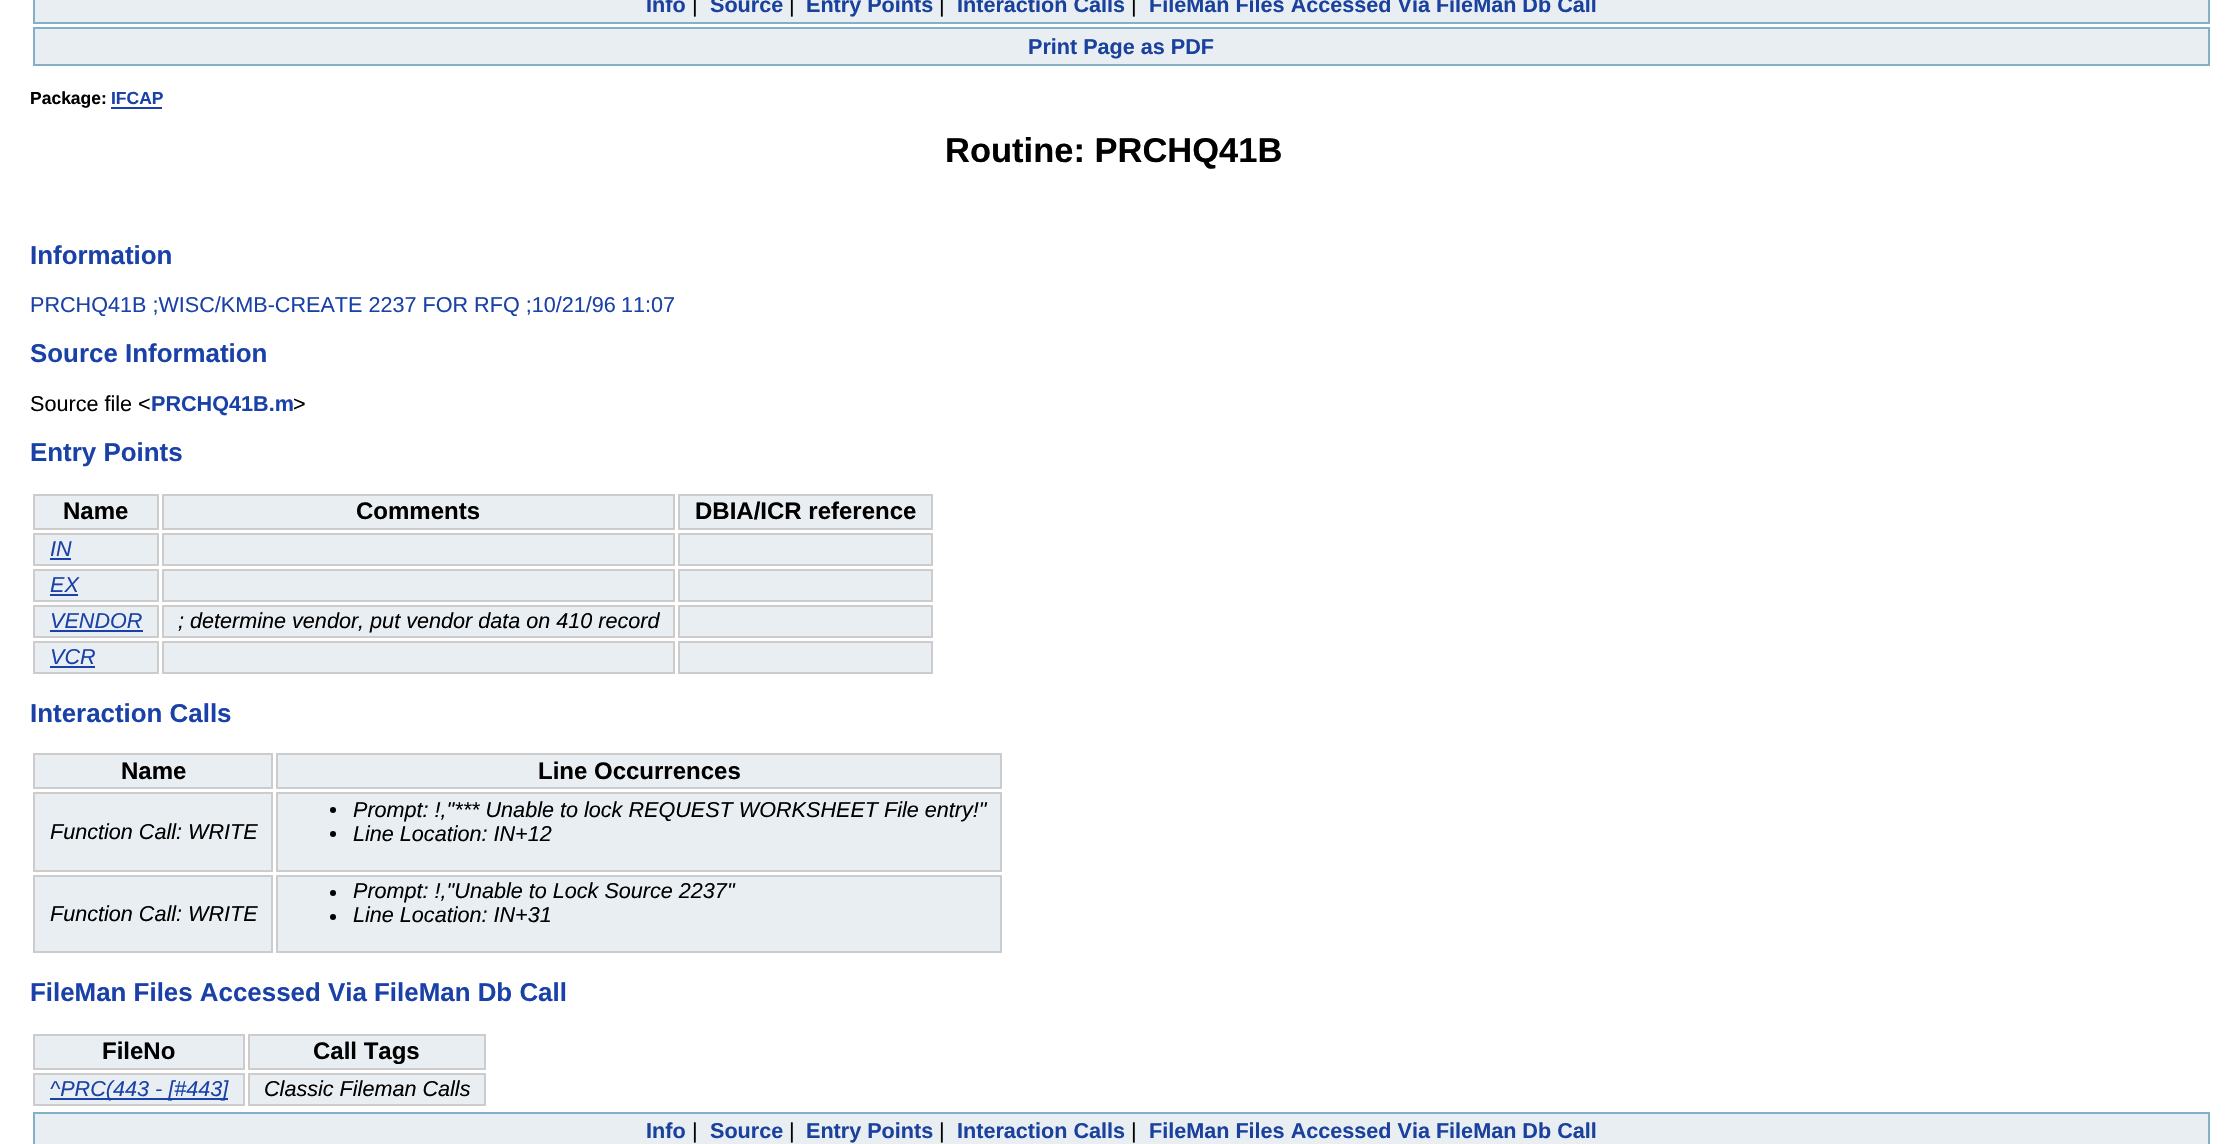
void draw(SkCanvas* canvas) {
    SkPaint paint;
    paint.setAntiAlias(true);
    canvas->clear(0xFFFFFFFF);
    paint.setColor(0xFFE8EEF2);
    canvas->drawRect(SkRect::MakeXYWH(34, -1, 2175, 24), paint);
    paint.setStyle(SkPaint::kStroke_Style);
    paint.setStrokeWidth(2);
    paint.setColor(0xFF84B0C7);
    canvas->drawRect(SkRect::MakeXYWH(34, -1, 2175, 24), paint);
    SkFont font1(fontMgr->matchFamilyStyle("Liberation Sans", SkFontStyle::Bold()), 21.6f);
    font1.setSubpixel(true);
    paint.setStyle(SkPaint::kFill_Style);
    paint.setColor(0xFF1A419D);
    canvas->drawString("Info", 646, 12, font1, paint);
    SkFont font2(fontMgr->matchFamilyStyle("Liberation Sans", SkFontStyle::Normal()), 21.6f);
    font2.setSubpixel(true);
    paint.setColor(0xFF000000);
    canvas->drawString("|", 692, 12, font2, paint);
    paint.setColor(0xFF1A419D);
    canvas->drawString("Source", 710, 12, font1, paint);
    paint.setColor(0xFF000000);
    canvas->drawString("|", 789, 12, font2, paint);
    paint.setColor(0xFF1A419D);
    canvas->drawString("Entry Points", 806, 12, font1, paint);
    paint.setColor(0xFF000000);
    canvas->drawString("|", 939, 12, font2, paint);
    paint.setColor(0xFF1A419D);
    canvas->drawString("Interaction Calls", 957, 12, font1, paint);
    paint.setColor(0xFF000000);
    canvas->drawString("|", 1131, 12, font2, paint);
    paint.setColor(0xFF1A419D);
    canvas->drawString("FileMan Files Accessed Via FileMan Db Call", 1149, 12, font1, paint);
    paint.setColor(0xFFE8EEF2);
    canvas->drawRect(SkRect::MakeXYWH(34, 28, 2175, 37), paint);
    paint.setStyle(SkPaint::kStroke_Style);
    paint.setColor(0xFF84B0C7);
    canvas->drawRect(SkRect::MakeXYWH(34, 28, 2175, 37), paint);
    paint.setStyle(SkPaint::kFill_Style);
    paint.setColor(0xFF1A419D);
    canvas->drawString("Print Page as PDF", 1028, 54, font1, paint);
    SkFont font3(fontMgr->matchFamilyStyle("Liberation Sans", SkFontStyle::Bold()), 17.5f);
    font3.setSubpixel(true);
    paint.setColor(0xFF000000);
    canvas->drawString("Package:", 30, 104, font3, paint);
    paint.setColor(0xFF1A41A8);
    canvas->drawString("IFCAP", 111, 104, font3, paint);
    canvas->drawRect(SkRect::MakeXYWH(111, 107, 51, 2), paint);
    SkFont font4(fontMgr->matchFamilyStyle("Liberation Sans", SkFontStyle::Bold()), 34.5f);
    font4.setSubpixel(true);
    paint.setColor(0xFF000000);
    canvas->drawString("Routine: PRCHQ41B", 945, 162, font4, paint);
    SkFont font5(fontMgr->matchFamilyStyle("Liberation Sans", SkFontStyle::Bold()), 25.9f);
    font5.setSubpixel(true);
    paint.setColor(0xFF1A41A8);
    canvas->drawString("Information", 30, 264, font5, paint);
    canvas->drawString("PRCHQ41B ;WISC/KMB-CREATE 2237 FOR RFQ ;10/21/96", 30, 312, font2, paint);
    canvas->drawString("11:07", 621, 312, font2, paint);
    canvas->drawString("Source Information", 30, 362, font5, paint);
    paint.setColor(0xFF000000);
    canvas->drawString("Source file <", 30, 411, font2, paint);
    paint.setColor(0xFF1A41A8);
    canvas->drawString("PRCHQ41B.m", 151, 411, font1, paint);
    paint.setColor(0xFF000000);
    canvas->drawString(">", 293, 411, font2, paint);
    paint.setColor(0xFF1A41A8);
    canvas->drawString("Entry Points", 30, 461, font5, paint);
    paint.setColor(0xFFE8EEF2);
    canvas->drawRect(SkRect::MakeXYWH(34, 495, 124, 34), paint);
    paint.setStyle(SkPaint::kStroke_Style);
    paint.setColor(0xFFCCCCCC);
    canvas->drawRect(SkRect::MakeXYWH(34, 495, 124, 34), paint);
    SkFont font6(fontMgr->matchFamilyStyle("Liberation Sans", SkFontStyle::Bold()), 24);
    font6.setSubpixel(true);
    paint.setStyle(SkPaint::kFill_Style);
    paint.setColor(0xFF000000);
    canvas->drawString("Name", 63, 519, font6, paint);
    paint.setColor(0xFFE8EEF2);
    canvas->drawRect(SkRect::MakeXYWH(163, 495, 511, 34), paint);
    paint.setStyle(SkPaint::kStroke_Style);
    paint.setColor(0xFFCCCCCC);
    canvas->drawRect(SkRect::MakeXYWH(163, 495, 511, 34), paint);
    paint.setStyle(SkPaint::kFill_Style);
    paint.setColor(0xFF000000);
    canvas->drawString("Comments", 356, 519, font6, paint);
    paint.setColor(0xFFE8EEF2);
    canvas->drawRect(SkRect::MakeXYWH(679, 495, 253, 34), paint);
    paint.setStyle(SkPaint::kStroke_Style);
    paint.setColor(0xFFCCCCCC);
    canvas->drawRect(SkRect::MakeXYWH(679, 495, 253, 34), paint);
    paint.setStyle(SkPaint::kFill_Style);
    paint.setColor(0xFF000000);
    canvas->drawString("DBIA/ICR reference", 695, 519, font6, paint);
    paint.setColor(0xFFE8EEF2);
    canvas->drawRect(SkRect::MakeXYWH(34, 534, 124, 31), paint);
    paint.setStyle(SkPaint::kStroke_Style);
    paint.setColor(0xFFCCCCCC);
    canvas->drawRect(SkRect::MakeXYWH(34, 534, 124, 31), paint);
    SkFont font7(fontMgr->matchFamilyStyle("Liberation Sans", SkFontStyle::Italic()), 21.6f);
    font7.setSubpixel(true);
    paint.setStyle(SkPaint::kFill_Style);
    paint.setColor(0xFF1A41A8);
    canvas->drawString("IN", 50, 556, font7, paint);
    canvas->drawRect(SkRect::MakeXYWH(50, 558, 21, 2), paint);
    paint.setColor(0xFFE8EEF2);
    canvas->drawRect(SkRect::MakeXYWH(163, 534, 511, 31), paint);
    paint.setStyle(SkPaint::kStroke_Style);
    paint.setColor(0xFFCCCCCC);
    canvas->drawRect(SkRect::MakeXYWH(163, 534, 511, 31), paint);
    paint.setStyle(SkPaint::kFill_Style);
    paint.setColor(0xFFE8EEF2);
    canvas->drawRect(SkRect::MakeXYWH(679, 534, 253, 31), paint);
    paint.setStyle(SkPaint::kStroke_Style);
    paint.setColor(0xFFCCCCCC);
    canvas->drawRect(SkRect::MakeXYWH(679, 534, 253, 31), paint);
    paint.setStyle(SkPaint::kFill_Style);
    paint.setColor(0xFFE8EEF2);
    canvas->drawRect(SkRect::MakeXYWH(34, 570, 124, 31), paint);
    paint.setStyle(SkPaint::kStroke_Style);
    paint.setColor(0xFFCCCCCC);
    canvas->drawRect(SkRect::MakeXYWH(34, 570, 124, 31), paint);
    paint.setStyle(SkPaint::kFill_Style);
    paint.setColor(0xFF1A41A8);
    canvas->drawString("EX", 50, 592, font7, paint);
    canvas->drawRect(SkRect::MakeXYWH(50, 594, 28, 2), paint);
    paint.setColor(0xFFE8EEF2);
    canvas->drawRect(SkRect::MakeXYWH(163, 570, 511, 31), paint);
    paint.setStyle(SkPaint::kStroke_Style);
    paint.setColor(0xFFCCCCCC);
    canvas->drawRect(SkRect::MakeXYWH(163, 570, 511, 31), paint);
    paint.setStyle(SkPaint::kFill_Style);
    paint.setColor(0xFFE8EEF2);
    canvas->drawRect(SkRect::MakeXYWH(679, 570, 253, 31), paint);
    paint.setStyle(SkPaint::kStroke_Style);
    paint.setColor(0xFFCCCCCC);
    canvas->drawRect(SkRect::MakeXYWH(679, 570, 253, 31), paint);
    paint.setStyle(SkPaint::kFill_Style);
    paint.setColor(0xFFE8EEF2);
    canvas->drawRect(SkRect::MakeXYWH(34, 606, 124, 31), paint);
    paint.setStyle(SkPaint::kStroke_Style);
    paint.setColor(0xFFCCCCCC);
    canvas->drawRect(SkRect::MakeXYWH(34, 606, 124, 31), paint);
    paint.setStyle(SkPaint::kFill_Style);
    paint.setColor(0xFF1A41A8);
    canvas->drawString("VENDOR", 50, 628, font7, paint);
    canvas->drawRect(SkRect::MakeXYWH(50, 630, 93, 2), paint);
    paint.setColor(0xFFE8EEF2);
    canvas->drawRect(SkRect::MakeXYWH(163, 606, 511, 31), paint);
    paint.setStyle(SkPaint::kStroke_Style);
    paint.setColor(0xFFCCCCCC);
    canvas->drawRect(SkRect::MakeXYWH(163, 606, 511, 31), paint);
    paint.setStyle(SkPaint::kFill_Style);
    paint.setColor(0xFF000000);
    canvas->drawString("; determine vendor, put vendor data on 410 record", 178, 628, font7, paint);
    paint.setColor(0xFFE8EEF2);
    canvas->drawRect(SkRect::MakeXYWH(679, 606, 253, 31), paint);
    paint.setStyle(SkPaint::kStroke_Style);
    paint.setColor(0xFFCCCCCC);
    canvas->drawRect(SkRect::MakeXYWH(679, 606, 253, 31), paint);
    paint.setStyle(SkPaint::kFill_Style);
    paint.setColor(0xFFE8EEF2);
    canvas->drawRect(SkRect::MakeXYWH(34, 642, 124, 31), paint);
    paint.setStyle(SkPaint::kStroke_Style);
    paint.setColor(0xFFCCCCCC);
    canvas->drawRect(SkRect::MakeXYWH(34, 642, 124, 31), paint);
    paint.setStyle(SkPaint::kFill_Style);
    paint.setColor(0xFF1A41A8);
    canvas->drawString("VCR", 50, 664, font7, paint);
    canvas->drawRect(SkRect::MakeXYWH(50, 666, 45, 2), paint);
    paint.setColor(0xFFE8EEF2);
    canvas->drawRect(SkRect::MakeXYWH(163, 642, 511, 31), paint);
    paint.setStyle(SkPaint::kStroke_Style);
    paint.setColor(0xFFCCCCCC);
    canvas->drawRect(SkRect::MakeXYWH(163, 642, 511, 31), paint);
    paint.setStyle(SkPaint::kFill_Style);
    paint.setColor(0xFFE8EEF2);
    canvas->drawRect(SkRect::MakeXYWH(679, 642, 253, 31), paint);
    paint.setStyle(SkPaint::kStroke_Style);
    paint.setColor(0xFFCCCCCC);
    canvas->drawRect(SkRect::MakeXYWH(679, 642, 253, 31), paint);
    paint.setStyle(SkPaint::kFill_Style);
    paint.setColor(0xFF1A41A8);
    canvas->drawString("Interaction Calls", 30, 722, font5, paint);
    paint.setColor(0xFFE8EEF2);
    canvas->drawRect(SkRect::MakeXYWH(34, 754, 238, 34), paint);
    paint.setStyle(SkPaint::kStroke_Style);
    paint.setColor(0xFFCCCCCC);
    canvas->drawRect(SkRect::MakeXYWH(34, 754, 238, 34), paint);
    paint.setStyle(SkPaint::kFill_Style);
    paint.setColor(0xFF000000);
    canvas->drawString("Name", 121, 779, font6, paint);
    paint.setColor(0xFFE8EEF2);
    canvas->drawRect(SkRect::MakeXYWH(277, 754, 724, 34), paint);
    paint.setStyle(SkPaint::kStroke_Style);
    paint.setColor(0xFFCCCCCC);
    canvas->drawRect(SkRect::MakeXYWH(277, 754, 724, 34), paint);
    paint.setStyle(SkPaint::kFill_Style);
    paint.setColor(0xFF000000);
    canvas->drawString("Line Occurrences", 538, 779, font6, paint);
    paint.setColor(0xFFE8EEF2);
    canvas->drawRect(SkRect::MakeXYWH(34, 793, 238, 78), paint);
    paint.setStyle(SkPaint::kStroke_Style);
    paint.setColor(0xFFCCCCCC);
    canvas->drawRect(SkRect::MakeXYWH(34, 793, 238, 78), paint);
    paint.setStyle(SkPaint::kFill_Style);
    paint.setColor(0xFF000000);
    canvas->drawString("Function Call: WRITE", 50, 839, font7, paint);
    paint.setColor(0xFFE8EEF2);
    canvas->drawRect(SkRect::MakeXYWH(277, 793, 724, 78), paint);
    paint.setStyle(SkPaint::kStroke_Style);
    paint.setColor(0xFFCCCCCC);
    canvas->drawRect(SkRect::MakeXYWH(277, 793, 724, 78), paint);
    paint.setStyle(SkPaint::kFill_Style);
    paint.setColor(0xFF000000);
    canvas->drawCircle(333, 810, 3, paint);
    canvas->drawString("Prompt: !,\"*** Unable to lock REQUEST WORKSHEET File entry!\"", 353, 817, font7, paint);
    canvas->drawCircle(333, 834, 3, paint);
    canvas->drawString("Line Location: IN+12", 353, 841, font7, paint);
    paint.setColor(0xFFE8EEF2);
    canvas->drawRect(SkRect::MakeXYWH(34, 876, 238, 76), paint);
    paint.setStyle(SkPaint::kStroke_Style);
    paint.setColor(0xFFCCCCCC);
    canvas->drawRect(SkRect::MakeXYWH(34, 876, 238, 76), paint);
    paint.setStyle(SkPaint::kFill_Style);
    paint.setColor(0xFF000000);
    canvas->drawString("Function Call: WRITE", 50, 921, font7, paint);
    paint.setColor(0xFFE8EEF2);
    canvas->drawRect(SkRect::MakeXYWH(277, 876, 724, 76), paint);
    paint.setStyle(SkPaint::kStroke_Style);
    paint.setColor(0xFFCCCCCC);
    canvas->drawRect(SkRect::MakeXYWH(277, 876, 724, 76), paint);
    paint.setStyle(SkPaint::kFill_Style);
    paint.setColor(0xFF000000);
    canvas->drawCircle(333, 893, 3, paint);
    canvas->drawString("Prompt: !,\"Unable to Lock Source 2237\"", 353, 898, font7, paint);
    canvas->drawCircle(333, 917, 3, paint);
    canvas->drawString("Line Location: IN+31", 353, 922, font7, paint);
    paint.setColor(0xFF1A41A8);
    canvas->drawString("FileMan Files Accessed Via FileMan Db Call", 30, 1001, font5, paint);
    paint.setColor(0xFFE8EEF2);
    canvas->drawRect(SkRect::MakeXYWH(34, 1035, 210, 34), paint);
    paint.setStyle(SkPaint::kStroke_Style);
    paint.setColor(0xFFCCCCCC);
    canvas->drawRect(SkRect::MakeXYWH(34, 1035, 210, 34), paint);
    paint.setStyle(SkPaint::kFill_Style);
    paint.setColor(0xFF000000);
    canvas->drawString("FileNo", 102, 1059, font6, paint);
    paint.setColor(0xFFE8EEF2);
    canvas->drawRect(SkRect::MakeXYWH(249, 1035, 236, 34), paint);
    paint.setStyle(SkPaint::kStroke_Style);
    paint.setColor(0xFFCCCCCC);
    canvas->drawRect(SkRect::MakeXYWH(249, 1035, 236, 34), paint);
    paint.setStyle(SkPaint::kFill_Style);
    paint.setColor(0xFF000000);
    canvas->drawString("Call Tags", 313, 1059, font6, paint);
    paint.setColor(0xFFE8EEF2);
    canvas->drawRect(SkRect::MakeXYWH(34, 1074, 210, 31), paint);
    paint.setStyle(SkPaint::kStroke_Style);
    paint.setColor(0xFFCCCCCC);
    canvas->drawRect(SkRect::MakeXYWH(34, 1074, 210, 31), paint);
    paint.setStyle(SkPaint::kFill_Style);
    paint.setColor(0xFF1A41A8);
    canvas->drawRect(SkRect::MakeXYWH(50, 1098, 178, 2), paint);
    canvas->drawString("^PRC(443 - [#443]", 50, 1096, font7, paint);
    paint.setColor(0xFFE8EEF2);
    canvas->drawRect(SkRect::MakeXYWH(249, 1074, 236, 31), paint);
    paint.setStyle(SkPaint::kStroke_Style);
    paint.setColor(0xFFCCCCCC);
    canvas->drawRect(SkRect::MakeXYWH(249, 1074, 236, 31), paint);
    paint.setStyle(SkPaint::kFill_Style);
    paint.setColor(0xFF000000);
    canvas->drawString("Classic Fileman Calls", 264, 1096, font7, paint);
    paint.setColor(0xFFE8EEF2);
    canvas->drawRect(SkRect::MakeXYWH(34, 1113, 2175, 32), paint);
    paint.setStyle(SkPaint::kStroke_Style);
    paint.setColor(0xFF84B0C7);
    canvas->drawRect(SkRect::MakeXYWH(34, 1113, 2175, 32), paint);
    paint.setStyle(SkPaint::kFill_Style);
    paint.setColor(0xFF1A419D);
    canvas->drawString("Info", 646, 1138, font1, paint);
    paint.setColor(0xFF000000);
    canvas->drawString("|", 692, 1138, font2, paint);
    paint.setColor(0xFF1A419D);
    canvas->drawString("Source", 710, 1138, font1, paint);
    paint.setColor(0xFF000000);
    canvas->drawString("|", 789, 1138, font2, paint);
    paint.setColor(0xFF1A419D);
    canvas->drawString("Entry Points", 806, 1138, font1, paint);
    paint.setColor(0xFF000000);
    canvas->drawString("|", 939, 1138, font2, paint);
    paint.setColor(0xFF1A419D);
    canvas->drawString("Interaction Calls", 957, 1138, font1, paint);
    paint.setColor(0xFF000000);
    canvas->drawString("|", 1131, 1138, font2, paint);
    paint.setColor(0xFF1A419D);
    canvas->drawString("FileMan Files Accessed Via FileMan Db Call", 1149, 1138, font1, paint);
}
